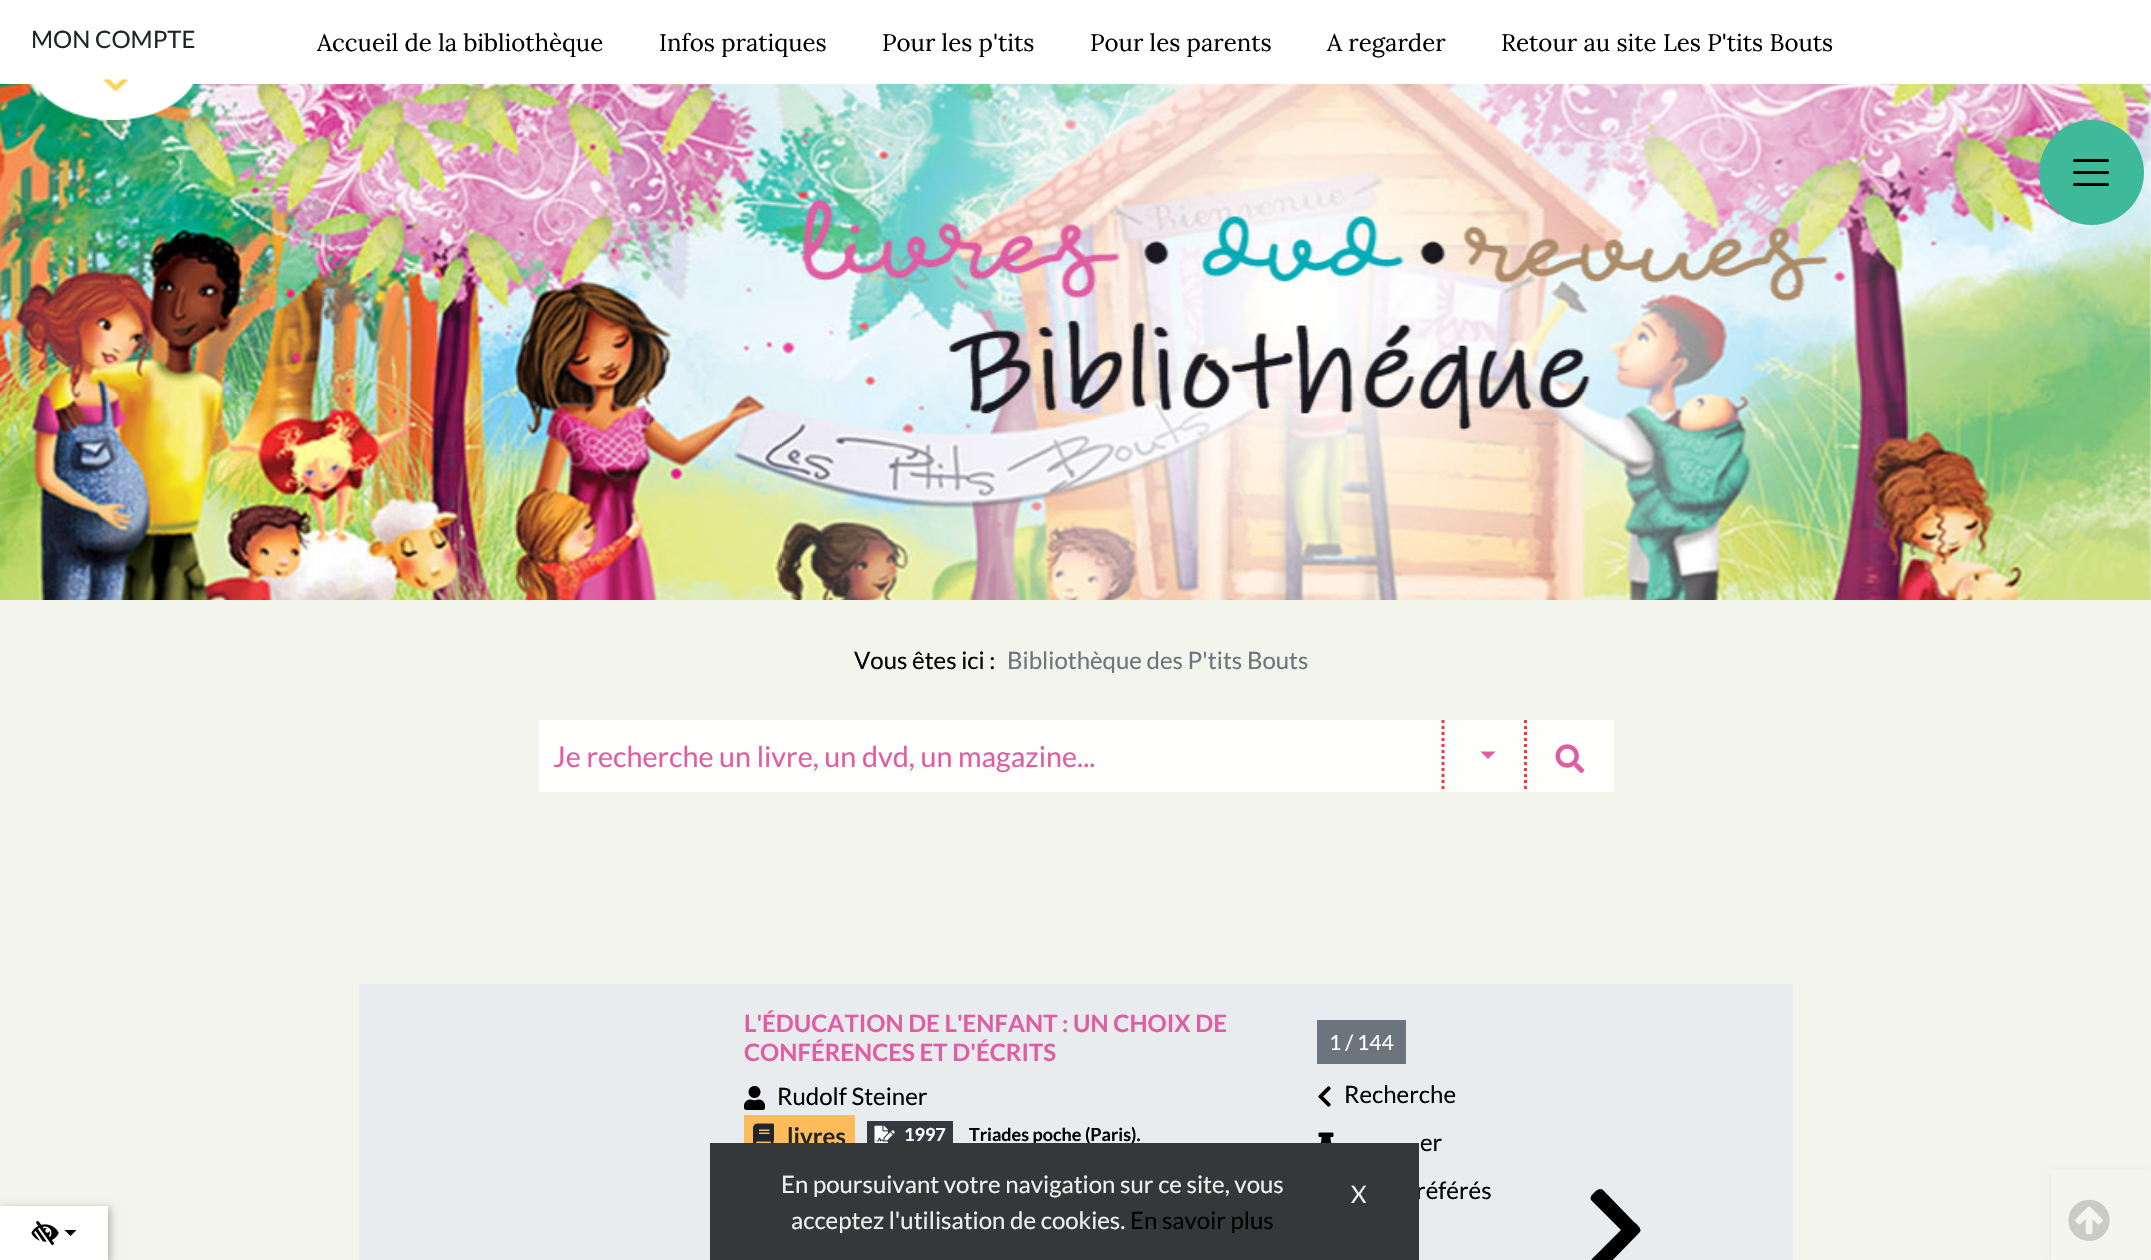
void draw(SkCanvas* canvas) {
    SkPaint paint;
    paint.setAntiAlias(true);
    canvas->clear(0xFFF3F4EC);
    canvas->drawImageRect(SkImages::DeferredFromEncodedData(SkData::MakeFromFileName("img1.png")), SkRect::MakeXYWH(0, 84, 2151, 516), SkSamplingOptions());
    paint.setColor(0xFFFFFFFF);
    canvas->drawRect(SkRect::MakeXYWH(0, 0, 2151, 84), paint);
    canvas->drawImageRect(SkImages::DeferredFromEncodedData(SkData::MakeFromFileName("img2.png")), SkRect::MakeXYWH(34, 78, 160, 42), SkSamplingOptions());
    SkFont font1(fontMgr->matchFamilyStyle("Lato", SkFontStyle::Normal()), 24);
    font1.setSubpixel(true);
    paint.setColor(0xFF212529);
    canvas->drawString("MON COMPTE", 31, 48, font1, paint);
    SkFont font2(fontMgr->matchFamilyStyle("Lora", SkFontStyle::Normal()), 24);
    font2.setSubpixel(true);
    paint.setColor(0xFF000000);
    canvas->drawString("Accueil de la bibliothèque", 317, 51, font2, paint);
    canvas->drawString("Infos pratiques", 659, 51, font2, paint);
    canvas->drawString("Pour les p'tits", 882, 51, font2, paint);
    canvas->drawString("Pour les parents", 1090, 51, font2, paint);
    canvas->drawString("A regarder", 1327, 51, font2, paint);
    canvas->drawString("Retour au site Les P'tits Bouts", 1501, 51, font2, paint);
    paint.setColor(0xFF3EB999);
    canvas->drawCircle(2091.5f, 172.5f, 52.5f, paint);
    paint.setStyle(SkPaint::kStroke_Style);
    paint.setStrokeWidth(3);
    paint.setStrokeCap(SkPaint::kRound_Cap);
    paint.setColor(0xFF000000);
    canvas->drawPath(SkPathBuilder().moveTo(2074.5f, 160.5f).lineTo(2107.5f, 160.5f).moveTo(2074.5f, 172.5f).lineTo(2107.5f, 172.5f).moveTo(2074.5f, 184.5f).lineTo(2107.5f, 184.5f).detach(), paint);
    paint.setStyle(SkPaint::kFill_Style);
    canvas->drawString("Vous êtes ici :", 854, 669, font1, paint);
    paint.setColor(0xFF6C747D);
    canvas->drawString("Bibliothèque des P'tits Bouts", 1007, 669, font1, paint);
    paint.setColor(0xFFFEFEFD);
    canvas->drawRect(SkRect::MakeXYWH(539, 720, 985, 72), paint);
    SkFont font3(fontMgr->matchFamilyStyle("Lato", SkFontStyle::Normal()), 28.75f);
    font3.setSubpixel(true);
    paint.setColor(0xFFE05DA3);
    canvas->drawString("Je recherche un livre, un dvd, un magazine...", 553, 767, font3, paint);
    paint.setStyle(SkPaint::kStroke_Style);
    paint.setStrokeCap(SkPaint::kButt_Cap);
    paint.setColor(0xFFE83A3B);
    paint.setPathEffect(SkDashPathEffect::Make({{3, 3}}, 0));
    canvas->drawPath(SkPathBuilder().moveTo(1443, 720).lineTo(1443, 792).detach(), paint);
    paint.setPathEffect(nullptr);
    paint.setStyle(SkPaint::kFill_Style);
    paint.setColor(0xFFE05DA3);
    canvas->drawPath(SkPathBuilder().moveTo(1480.5f, 751.5f).lineTo(1495.5f, 751.5f).lineTo(1488, 759).close().detach(), paint);
    paint.setColor(0xFFFEFEFD);
    canvas->drawRect(SkRect::MakeXYWH(1524, 720, 90, 72), paint);
    paint.setStyle(SkPaint::kStroke_Style);
    paint.setColor(0xFFE83A3B);
    paint.setPathEffect(SkDashPathEffect::Make({{3, 3}}, 0));
    canvas->drawPath(SkPathBuilder().moveTo(1525.5f, 720).lineTo(1525.5f, 792).detach(), paint);
    paint.setPathEffect(nullptr);
    canvas->drawImageRect(SkImages::DeferredFromEncodedData(SkData::MakeFromFileName("img3.png")), SkRect::MakeXYWH(1555, 744, 30, 30), SkSamplingOptions());
    paint.setStyle(SkPaint::kFill_Style);
    paint.setColor(0xFFE9ECEF);
    canvas->drawRect(SkRect::MakeXYWH(359, 984, 1434, 276), paint);
    SkFont font4(fontMgr->matchFamilyStyle("Lato", SkFontStyle::Bold()), 24);
    font4.setSubpixel(true);
    paint.setColor(0xFFE05DA3);
    canvas->drawString("L'ÉDUCATION DE L'ENFANT : UN CHOIX DE", 744, 1032, font4, paint);
    canvas->drawString("CONFÉRENCES ET D'ÉCRITS", 744, 1061, font4, paint);
    canvas->drawImageRect(SkImages::DeferredFromEncodedData(SkData::MakeFromFileName("img4.png")), SkRect::MakeXYWH(744, 1086, 21, 24), SkSamplingOptions());
    paint.setColor(0xFF000000);
    canvas->drawString("Rudolf Steiner", 777, 1105, font1, paint);
    paint.setColor(0xFFFDBB59);
    canvas->drawRect(SkRect::MakeXYWH(744, 1115, 111, 28), paint);
    canvas->drawImageRect(SkImages::DeferredFromEncodedData(SkData::MakeFromFileName("img5.png")), SkRect::MakeXYWH(753, 1123, 21, 20), SkSamplingOptions());
    paint.setColor(0xFF212529);
    canvas->drawString("livres", 787, 1145, font4, paint);
    paint.setColor(0xFF343A40);
    canvas->drawRect(SkRect::MakeXYWH(867, 1121, 86, 22), paint);
    canvas->drawImageRect(SkImages::DeferredFromEncodedData(SkData::MakeFromFileName("img6.png")), SkRect::MakeXYWH(874, 1125, 21, 18), SkSamplingOptions());
    SkFont font5(fontMgr->matchFamilyStyle("Lato", SkFontStyle::Bold()), 18);
    font5.setSubpixel(true);
    paint.setColor(0xFFFFFFFF);
    canvas->drawString("1997", 904, 1141, font5, paint);
    paint.setColor(0xFF000000);
    canvas->drawString("Triades poche (Paris).", 969, 1141, font5, paint);
    paint.setColor(0xFF6C757D);
    canvas->drawRect(SkRect::MakeXYWH(1317, 1020, 89, 44), paint);
    SkFont font6(fontMgr->matchFamilyStyle("Lato", SkFontStyle::Normal()), 21);
    font6.setSubpixel(true);
    paint.setColor(0xFFFFFFFF);
    canvas->drawString("1 / 144", 1329, 1050, font6, paint);
    canvas->drawImageRect(SkImages::DeferredFromEncodedData(SkData::MakeFromFileName("img7.png")), SkRect::MakeXYWH(1318, 1086, 13, 21), SkSamplingOptions());
    paint.setColor(0xFF000000);
    canvas->drawString("Recherche", 1344, 1103, font1, paint);
    canvas->drawImageRect(SkImages::DeferredFromEncodedData(SkData::MakeFromFileName("img8.png")), SkRect::MakeXYWH(1318, 1132, 16, 11), SkSamplingOptions());
    canvas->drawString("er", 1420, 1151, font1, paint);
    canvas->drawString("référés", 1416, 1199, font1, paint);
    canvas->drawPath(SkPathBuilder().moveTo(1639, 1233).lineTo(1603, 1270).cubicTo(1599, 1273, 1596, 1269, 1593, 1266).cubicTo(1588, 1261, 1592, 1259, 1597, 1254).lineTo(1621, 1230).lineTo(1591, 1200).cubicTo(1590, 1198, 1591, 1196, 1592, 1195).cubicTo(1595, 1192, 1599, 1187, 1603, 1190).lineTo(1633, 1221).cubicTo(1635, 1223, 1644, 1229, 1639, 1233).close().detach(), paint);
    paint.setColor(0x4D000000);
    paint.setMaskFilter(SkMaskFilter::MakeBlur(kNormal_SkBlurStyle, 4));
    canvas->drawRect(SkRect::MakeXYWH(2, 1208, 108, 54), paint);
    paint.setMaskFilter(nullptr);
    paint.setColor(0xFFFFFFFF);
    canvas->drawRect(SkRect::MakeXYWH(0, 1206, 108, 54), paint);
    canvas->drawImageRect(SkImages::DeferredFromEncodedData(SkData::MakeFromFileName("img9.png")), SkRect::MakeXYWH(31, 1221, 28, 24), SkSamplingOptions());
    paint.setColor(0xFF000000);
    canvas->drawPath(SkPathBuilder().moveTo(64.5f, 1230).lineTo(76.5f, 1230).lineTo(70.5f, 1236).close().detach(), paint);
    paint.setColor(0x4DC2C3BD);
    paint.setMaskFilter(SkMaskFilter::MakeBlur(kNormal_SkBlurStyle, 4));
    canvas->drawRect(SkRect::MakeXYWH(2052, 1172, 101, 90), paint);
    paint.setMaskFilter(nullptr);
    paint.setColor(0xFFF4F5EF);
    canvas->drawRect(SkRect::MakeXYWH(2051, 1170, 100, 90), paint);
    canvas->drawImageRect(SkImages::DeferredFromEncodedData(SkData::MakeFromFileName("img10.png")), SkRect::MakeXYWH(2068, 1199, 42, 42), SkSamplingOptions());
    paint.setColor(0xFF363738);
    canvas->drawRect(SkRect::MakeXYWH(710, 1143, 709, 117), paint);
    paint.setColor(0xFFF0F0F0);
    canvas->drawString("En poursuivant votre navigation sur ce site, vous", 781, 1193, font1, paint);
    canvas->drawString("acceptez l'utilisation de cookies.", 791, 1229, font1, paint);
    paint.setColor(0xFF000000);
    canvas->drawString("En savoir plus", 1130, 1229, font1, paint);
    paint.setColor(0xFFF0F0F0);
    canvas->drawString("X", 1351, 1203, font1, paint);
}
